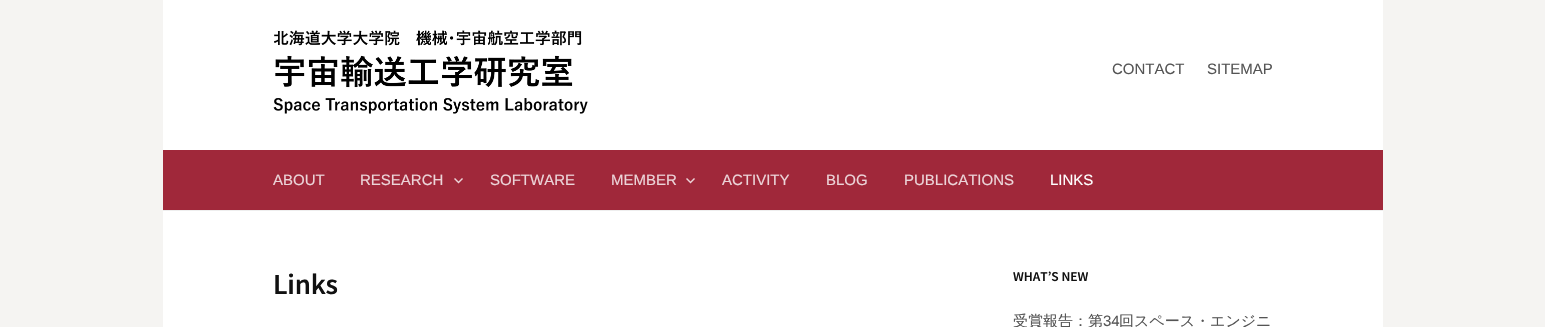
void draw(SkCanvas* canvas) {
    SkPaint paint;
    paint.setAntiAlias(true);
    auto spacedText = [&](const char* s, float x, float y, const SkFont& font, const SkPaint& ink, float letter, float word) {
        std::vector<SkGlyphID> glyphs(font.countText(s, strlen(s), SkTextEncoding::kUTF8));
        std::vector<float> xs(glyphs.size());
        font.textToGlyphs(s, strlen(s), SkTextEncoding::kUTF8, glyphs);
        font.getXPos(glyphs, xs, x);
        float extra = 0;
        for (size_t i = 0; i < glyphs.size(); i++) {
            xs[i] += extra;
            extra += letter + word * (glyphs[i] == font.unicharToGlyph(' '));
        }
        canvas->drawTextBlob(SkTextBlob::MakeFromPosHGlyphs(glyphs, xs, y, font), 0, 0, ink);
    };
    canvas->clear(0xFFF5F4F2);
    paint.setColor(0xFFFFFFFF);
    canvas->drawRect(SkRect::MakeXYWH(163, 0, 1220, 327), paint);
    paint.setColor(0xFFEEEEEE);
    canvas->drawRect(SkRect::MakeXYWH(163, 210, 1220, 1), paint);
    canvas->drawImageRect(SkImages::DeferredFromEncodedData(SkData::MakeFromFileName("img1.png")), SkRect::MakeXYWH(273, 30, 315, 84), SkSamplingOptions());
    SkFont font1(fontMgr->matchFamilyStyle("Liberation Sans", SkFontStyle::Normal()), 15);
    font1.setSubpixel(true);
    paint.setColor(0xFF555555);
    canvas->drawString("CONTACT", 1112, 74, font1, paint);
    canvas->drawString("SITEMAP", 1207, 74, font1, paint);
    paint.setColor(0xFFA0283A);
    canvas->drawRect(SkRect::MakeXYWH(163, 150, 1220, 60), paint);
    paint.setColor(0xFFECD4D8);
    canvas->drawString("ABOUT", 273, 185, font1, paint);
    canvas->drawString("RESEARCH", 360, 185, font1, paint);
    canvas->drawImageRect(SkImages::DeferredFromEncodedData(SkData::MakeFromFileName("img2.png")), SkRect::MakeXYWH(454, 178, 9, 6), SkSamplingOptions());
    canvas->drawString("SOFTWARE", 490, 185, font1, paint);
    canvas->drawString("MEMBER", 611, 185, font1, paint);
    canvas->drawImageRect(SkImages::DeferredFromEncodedData(SkData::MakeFromFileName("img2.png")), SkRect::MakeXYWH(686, 178, 9, 6), SkSamplingOptions());
    canvas->drawString("ACTIVITY", 722, 185, font1, paint);
    canvas->drawString("BLOG", 826, 185, font1, paint);
    canvas->drawString("PUBLICATIONS", 904, 185, font1, paint);
    paint.setColor(0xFFFFFFFF);
    canvas->drawString("LINKS", 1050, 185, font1, paint);
    SkFont font2(fontMgr->matchFamilyStyle("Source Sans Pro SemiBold", SkFontStyle(600, SkFontStyle::kNormal_Width, SkFontStyle::kUpright_Slant)), 29);
    font2.setSubpixel(true);
    paint.setColor(0xFF111111);
    spacedText("Links", 273, 294, font2, paint, -0.25f, 0);
    SkFont font3(fontMgr->matchFamilyStyle("Source Sans Pro SemiBold", SkFontStyle(600, SkFontStyle::kNormal_Width, SkFontStyle::kUpright_Slant)), 13.5f);
    font3.setSubpixel(true);
    canvas->drawString("WHAT’S NEW", 1013, 281, font3, paint);
    SkFont font4(fontMgr->matchFamilyStyle("WenQuanYi Zen Hei", SkFontStyle(500, SkFontStyle::kNormal_Width, SkFontStyle::kUpright_Slant)), 15);
    font4.setSubpixel(true);
    paint.setColor(0xFF555555);
    canvas->drawString("受賞報告：第", 1013, 326, font4, paint);
    canvas->drawString("34", 1103, 326, font1, paint);
    canvas->drawString("回スペース・エンジニ", 1119, 326, font4, paint);
}
